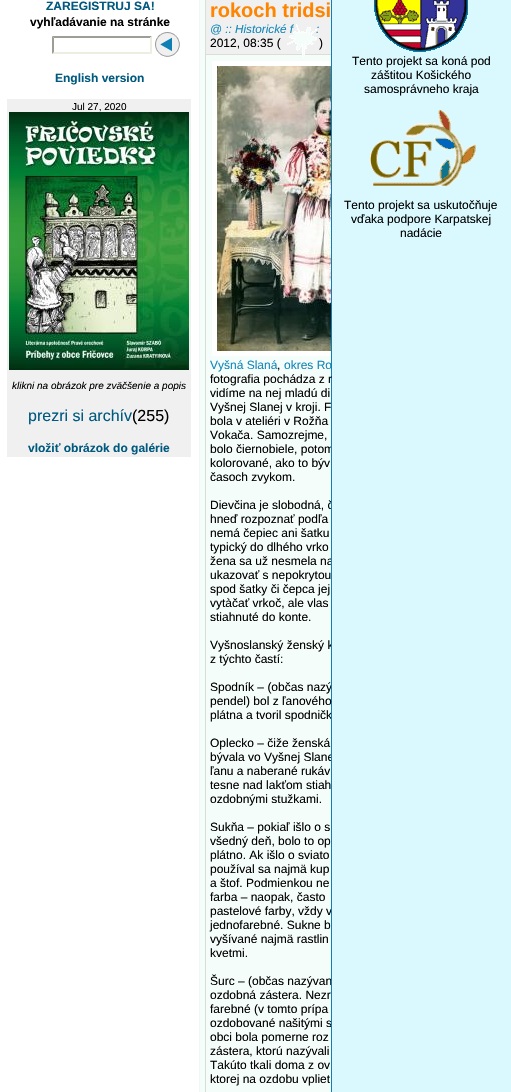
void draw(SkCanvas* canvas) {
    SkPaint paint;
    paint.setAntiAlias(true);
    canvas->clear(0xFFFFFFFF);
    canvas->drawImageRect(SkImages::DeferredFromEncodedData(SkData::MakeFromFileName("img1.png")), SkRect::MakeXYWH(199, 0, 1, 1092), SkSamplingOptions());
    paint.setColor(0xFFDAF9FE);
    canvas->drawRect(SkRect::MakeXYWH(332, 0, 179, 1092), paint);
    paint.setColor(0xFF0D80B4);
    canvas->drawRect(SkRect::MakeXYWH(331, 0, 1, 1092), paint);
    SkFont font1(fontMgr->matchFamilyStyle("Liberation Sans", SkFontStyle::Bold()), 12);
    font1.setSubpixel(true);
    paint.setColor(0xFF00597E);
    canvas->drawString("ZAREGISTRUJ SA!", 46, 10, font1, paint);
    paint.setColor(0xFF000000);
    canvas->drawString("vyhľadávanie na stránke", 30, 26, font1, paint);
    paint.setColor(0xFF9C9F97);
    canvas->drawPath(SkPathBuilder().moveTo(52, 36).lineTo(152, 36).lineTo(150, 38).lineTo(54, 38).close().detach(), paint);
    paint.setColor(0xFFEAEFE2);
    canvas->drawPath(SkPathBuilder().moveTo(152, 36).lineTo(152, 54).lineTo(150, 52).lineTo(150, 38).close().detach(), paint);
    canvas->drawPath(SkPathBuilder().moveTo(152, 54).lineTo(52, 54).lineTo(54, 52).lineTo(150, 52).close().detach(), paint);
    paint.setColor(0xFF9C9F97);
    canvas->drawPath(SkPathBuilder().moveTo(52, 54).lineTo(52, 36).lineTo(54, 38).lineTo(54, 52).close().detach(), paint);
    canvas->drawImageRect(SkImages::DeferredFromEncodedData(SkData::MakeFromFileName("img2.png")), SkRect::MakeXYWH(155, 32, 25, 25), SkSamplingOptions());
    paint.setColor(0xFF00597E);
    canvas->drawString("English version", 55, 82, font1, paint);
    paint.setColor(0xFFF0F0F0);
    canvas->drawRect(SkRect::MakeXYWH(7, 99, 184, 358), paint);
    SkFont font2(fontMgr->matchFamilyStyle("Liberation Sans", SkFontStyle::Normal()), 10);
    font2.setSubpixel(true);
    paint.setColor(0xFF000000);
    canvas->drawString("Jul 27, 2020", 72, 110, font2, paint);
    canvas->drawImageRect(SkImages::DeferredFromEncodedData(SkData::MakeFromFileName("img3.png")), SkRect::MakeXYWH(9, 112, 180, 258), SkSamplingOptions());
    SkFont font3(fontMgr->matchFamilyStyle("Liberation Sans", SkFontStyle::Italic()), 10);
    font3.setSubpixel(true);
    canvas->drawString("klikni na obrázok pre zväčšenie a popis", 12, 389, font3, paint);
    SkFont font4(fontMgr->matchFamilyStyle("Liberation Sans", SkFontStyle::Normal()), 16);
    font4.setSubpixel(true);
    paint.setColor(0xFF00597E);
    canvas->drawString("prezri si archív", 28, 421, font4, paint);
    paint.setColor(0xFF000000);
    canvas->drawString("(255)", 132, 421, font4, paint);
    paint.setColor(0xFF00597E);
    canvas->drawString("vložiť obrázok do galérie", 28, 452, font1, paint);
    paint.setColor(0xFFF5FDFA);
    canvas->drawRect(SkRect::MakeXYWH(200, 0, 5, 1092), paint);
    paint.setColor(0xFFDADFD2);
    canvas->drawRect(SkRect::MakeXYWH(205, 0, 126, 1092), paint);
    paint.setColor(0xFFF0F0F0);
    canvas->drawRect(SkRect::MakeXYWH(206, 0, 125, 54), paint);
    SkFont font5(fontMgr->matchFamilyStyle("Liberation Sans", SkFontStyle::Bold()), 20);
    font5.setSubpixel(true);
    paint.setColor(0xFFFF8400);
    canvas->drawString("rokoch tridsi", 210, 17, font5, paint);
    SkFont font6(fontMgr->matchFamilyStyle("Liberation Sans", SkFontStyle::Italic()), 11.75f);
    font6.setSubpixel(true);
    paint.setColor(0xFF1588BA);
    canvas->drawString("@ :: Historické f", 210, 33, font6, paint);
    canvas->drawString(":", 316, 33, font6, paint);
    paint.setColor(0xFFF5FDFA);
    canvas->drawRect(SkRect::MakeXYWH(206, 55, 125, 1037), paint);
    canvas->drawImageRect(SkImages::DeferredFromEncodedData(SkData::MakeFromFileName("img4.png")), SkRect::MakeXYWH(287, 24, 30, 33), SkSamplingOptions());
    SkFont font7(fontMgr->matchFamilyStyle("Liberation Sans", SkFontStyle::Normal()), 12);
    font7.setSubpixel(true);
    paint.setColor(0xFF000000);
    canvas->drawString("2012, 08:35 (", 210, 47, font7, paint);
    canvas->drawString(")", 319, 47, font7, paint);
    paint.setColor(0xFFFFFFFF);
    canvas->drawRect(SkRect::MakeXYWH(212, 61, 119, 295), paint);
    canvas->drawImageRect(SkImages::DeferredFromEncodedData(SkData::MakeFromFileName("img5.png")), SkRect::MakeXYWH(217, 66, 114, 285), SkSamplingOptions());
    paint.setColor(0xFF1588BA);
    canvas->drawString("Vyšná Slaná", 210, 369, font7, paint);
    paint.setColor(0xFF000000);
    canvas->drawString(",", 277, 369, font7, paint);
    canvas->save();
    canvas->clipRect(SkRect::MakeXYWH(200, 0, 131, 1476));
    paint.setColor(0xFF1588BA);
    canvas->drawString("okres Ro", 284, 369, font7, paint);
    canvas->restore();
    paint.setColor(0xFF000000);
    canvas->drawString("fotografia pochádza z r", 210, 383, font7, paint);
    canvas->drawString("vidíme na nej mladú di", 210, 397, font7, paint);
    canvas->drawString("Vyšnej Slanej v kroji. F", 210, 411, font7, paint);
    canvas->drawString("bola v ateliéri v Rožňa", 210, 425, font7, paint);
    canvas->drawString("Vokača. Samozrejme,", 210, 439, font7, paint);
    canvas->save();
    canvas->clipRect(SkRect::MakeXYWH(200, 0, 131, 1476));
    canvas->drawString("bolo čiernobiele, potom", 210, 453, font7, paint);
    canvas->restore();
    canvas->drawString("kolorované, ako to býv", 210, 467, font7, paint);
    canvas->drawString("časoch zvykom.", 210, 481, font7, paint);
    canvas->save();
    canvas->clipRect(SkRect::MakeXYWH(200, 0, 131, 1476));
    canvas->drawString("Dievčina je slobodná, č", 210, 509, font7, paint);
    canvas->restore();
    canvas->drawString("hneď rozpoznať podľa", 210, 523, font7, paint);
    canvas->drawString("nemá čepiec ani šatku", 210, 537, font7, paint);
    canvas->drawString("typický do dlhého vrko", 210, 551, font7, paint);
    canvas->save();
    canvas->clipRect(SkRect::MakeXYWH(200, 0, 131, 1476));
    canvas->drawString("žena sa už nesmela na", 210, 565, font7, paint);
    canvas->restore();
    canvas->drawString("ukazovať s nepokrytou", 210, 579, font7, paint);
    canvas->drawString("spod šatky či čepca jej", 210, 593, font7, paint);
    canvas->drawString("vytàčať vrkoč, ale vlas", 210, 607, font7, paint);
    canvas->drawString("stiahnuté do konte.", 210, 621, font7, paint);
    canvas->save();
    canvas->clipRect(SkRect::MakeXYWH(200, 0, 131, 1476));
    canvas->drawString("Vyšnoslanský ženský k", 210, 649, font7, paint);
    canvas->restore();
    canvas->drawString("z týchto častí:", 210, 663, font7, paint);
    canvas->save();
    canvas->clipRect(SkRect::MakeXYWH(200, 0, 131, 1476));
    canvas->drawString("Spodník – (občas nazý", 210, 691, font7, paint);
    canvas->restore();
    canvas->drawString("pendel) bol z ľanového", 210, 705, font7, paint);
    canvas->save();
    canvas->clipRect(SkRect::MakeXYWH(200, 0, 131, 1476));
    canvas->drawString("plátna a tvoril spodničk", 210, 719, font7, paint);
    canvas->restore();
    canvas->drawString("Oplecko – čiže ženská", 210, 747, font7, paint);
    canvas->save();
    canvas->clipRect(SkRect::MakeXYWH(200, 0, 131, 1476));
    canvas->drawString("bývala vo Vyšnej Slane", 210, 761, font7, paint);
    canvas->restore();
    canvas->drawString("ľanu a naberané rukáv", 210, 775, font7, paint);
    canvas->drawString("tesne nad lakťom stiah", 210, 789, font7, paint);
    canvas->drawString("ozdobnými stužkami.", 210, 803, font7, paint);
    canvas->drawString("Sukňa – pokiaľ išlo o s", 210, 831, font7, paint);
    canvas->drawString("všedný deň, bolo to op", 210, 845, font7, paint);
    canvas->drawString("plátno. Ak išlo o sviato", 210, 859, font7, paint);
    canvas->drawString("používal sa najmä kup", 210, 873, font7, paint);
    canvas->drawString("a štof. Podmienkou ne", 210, 887, font7, paint);
    canvas->drawString("farba – naopak, často", 210, 901, font7, paint);
    canvas->save();
    canvas->clipRect(SkRect::MakeXYWH(200, 0, 131, 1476));
    canvas->drawString("pastelové farby, vždy v", 210, 915, font7, paint);
    canvas->restore();
    canvas->drawString("jednofarebné. Sukne b", 210, 929, font7, paint);
    canvas->drawString("vyšívané najmä rastlin", 210, 943, font7, paint);
    canvas->drawString("kvetmi.", 210, 957, font7, paint);
    canvas->save();
    canvas->clipRect(SkRect::MakeXYWH(200, 0, 131, 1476));
    canvas->drawString("Šurc – (občas nazývan", 210, 985, font7, paint);
    canvas->restore();
    canvas->drawString("ozdobná zástera. Nezr", 210, 999, font7, paint);
    canvas->drawString("farebné (v tomto prípa", 210, 1013, font7, paint);
    canvas->save();
    canvas->clipRect(SkRect::MakeXYWH(200, 0, 131, 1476));
    canvas->drawString("ozdobované našitými s", 210, 1027, font7, paint);
    canvas->restore();
    canvas->drawString("obci bola pomerne roz", 210, 1041, font7, paint);
    canvas->drawString("zástera, ktorú nazývali", 210, 1055, font7, paint);
    canvas->drawString("Takúto tkali doma z ov", 210, 1069, font7, paint);
    canvas->drawString("ktorej na ozdobu vpliet", 210, 1083, font7, paint);
    canvas->drawImageRect(SkImages::DeferredFromEncodedData(SkData::MakeFromFileName("img6.png")), SkRect::MakeXYWH(374, 0, 94, 52), SkSamplingOptions());
    canvas->drawString("Tento projekt sa koná pod", 352, 65, font7, paint);
    canvas->drawString("záštitou Košického", 371, 79, font7, paint);
    canvas->drawString("samosprávneho kraja", 364, 93, font7, paint);
    canvas->drawImageRect(SkImages::DeferredFromEncodedData(SkData::MakeFromFileName("img7.png")), SkRect::MakeXYWH(369, 110, 107, 76), SkSamplingOptions());
    canvas->drawString("Tento projekt sa uskutočňuje", 344, 209, font7, paint);
    canvas->drawString("vďaka podpore Karpatskej", 351, 223, font7, paint);
    canvas->drawString("nadácie", 400, 237, font7, paint);
}
